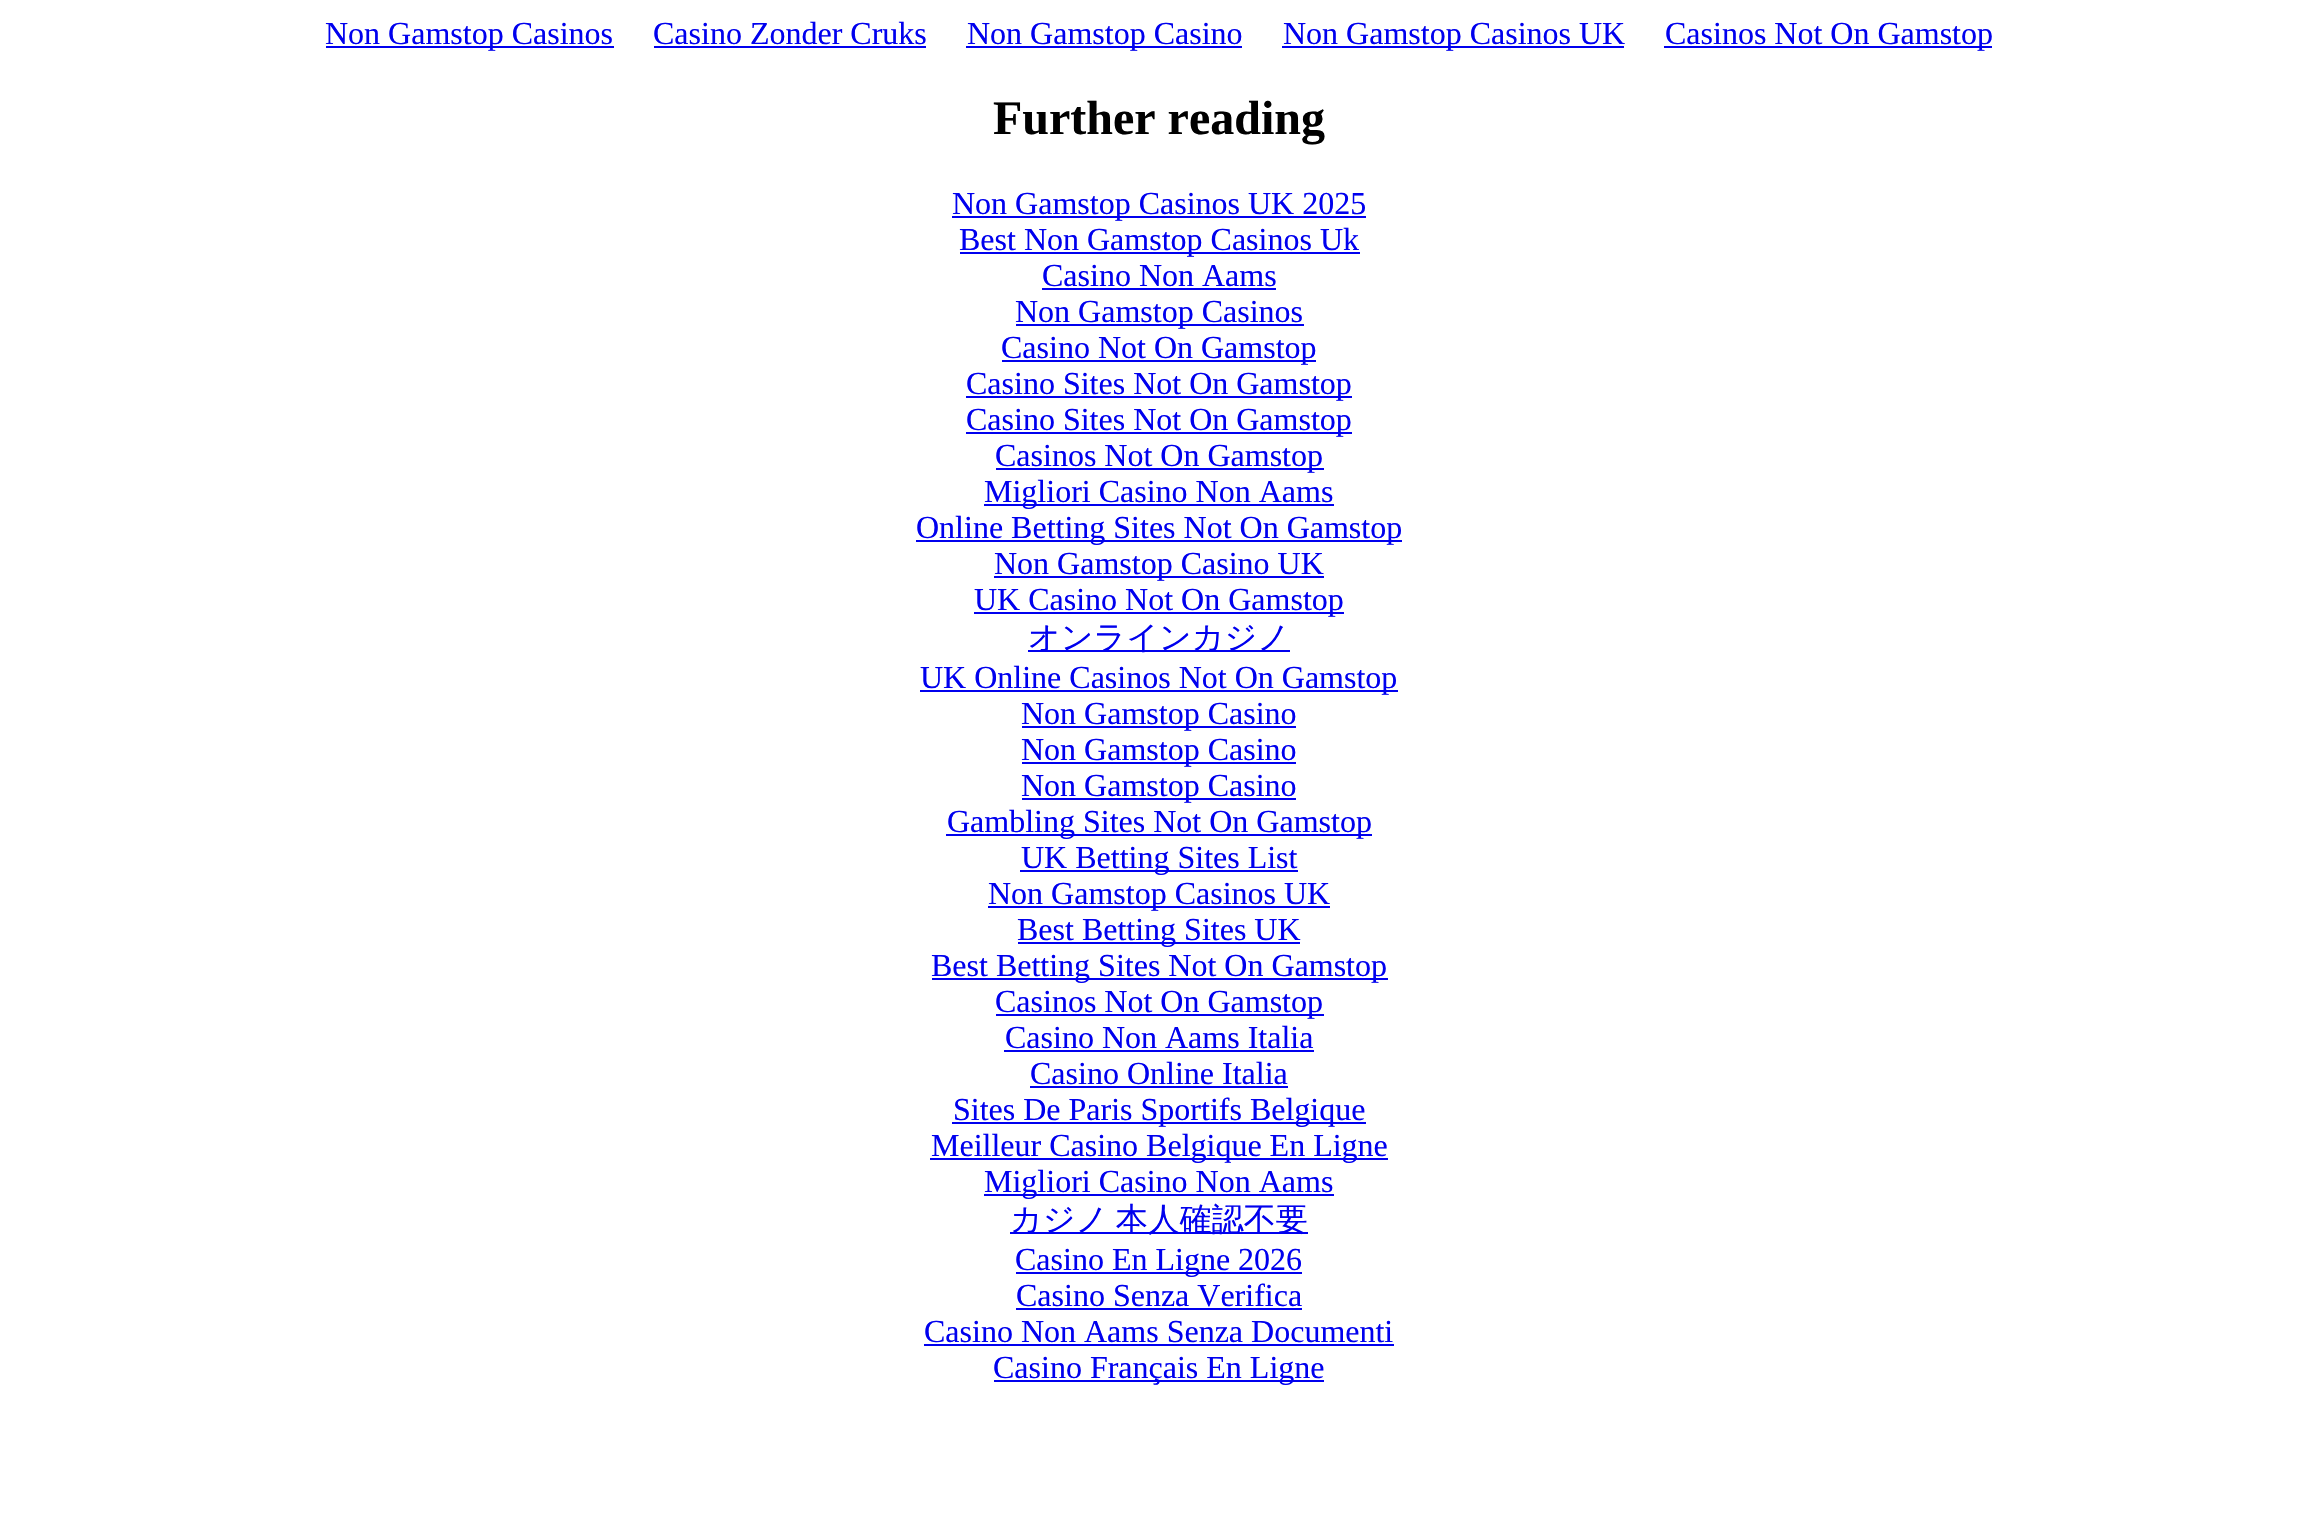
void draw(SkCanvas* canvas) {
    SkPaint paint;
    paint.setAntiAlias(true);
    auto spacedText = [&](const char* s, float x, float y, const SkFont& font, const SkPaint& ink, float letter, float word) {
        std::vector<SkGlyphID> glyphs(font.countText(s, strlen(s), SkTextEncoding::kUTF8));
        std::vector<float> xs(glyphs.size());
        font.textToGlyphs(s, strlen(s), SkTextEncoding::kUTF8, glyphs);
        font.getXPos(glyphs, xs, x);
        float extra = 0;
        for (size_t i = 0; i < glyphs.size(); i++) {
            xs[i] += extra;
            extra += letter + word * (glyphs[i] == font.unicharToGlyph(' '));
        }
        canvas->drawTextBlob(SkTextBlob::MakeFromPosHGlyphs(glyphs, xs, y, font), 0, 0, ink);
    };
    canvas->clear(0xFFFFFFFF);
    paint.setColor(0xFF0000EE);
    canvas->drawRect(SkRect::MakeXYWH(326, 46, 288, 2), paint);
    SkFont font1(fontMgr->matchFamilyStyle("Liberation Serif", SkFontStyle::Normal()), 32);
    font1.setSubpixel(true);
    canvas->drawString("Non Gamstop Casinos", 325, 44, font1, paint);
    canvas->drawString("Casino Zonder Cruks", 653, 44, font1, paint);
    canvas->drawRect(SkRect::MakeXYWH(654, 46, 272, 2), paint);
    canvas->drawRect(SkRect::MakeXYWH(966, 46, 276, 2), paint);
    canvas->drawString("Non Gamstop Casino", 967, 44, font1, paint);
    canvas->drawRect(SkRect::MakeXYWH(1282, 46, 342, 2), paint);
    canvas->drawString("Non Gamstop Casinos UK", 1283, 44, font1, paint);
    canvas->drawRect(SkRect::MakeXYWH(1664, 46, 328, 2), paint);
    canvas->drawString("Casinos Not On Gamstop", 1665, 44, font1, paint);
    SkFont font2(fontMgr->matchFamilyStyle("Liberation Serif", SkFontStyle::Bold()), 48);
    font2.setSubpixel(true);
    paint.setColor(0xFF000000);
    canvas->drawString("Further reading", 993, 134, font2, paint);
    paint.setColor(0xFF0000EE);
    canvas->drawRect(SkRect::MakeXYWH(952, 216, 414, 2), paint);
    canvas->drawString("Non Gamstop Casinos UK 2025", 952, 214, font1, paint);
    canvas->drawRect(SkRect::MakeXYWH(960, 252, 400, 2), paint);
    canvas->drawString("Best Non Gamstop Casinos Uk", 959, 250, font1, paint);
    canvas->drawString("Casino Non Aams", 1042, 286, font1, paint);
    canvas->drawRect(SkRect::MakeXYWH(1042, 288, 234, 2), paint);
    canvas->drawRect(SkRect::MakeXYWH(1016, 324, 288, 2), paint);
    canvas->drawString("Non Gamstop Casinos", 1015, 322, font1, paint);
    canvas->drawRect(SkRect::MakeXYWH(1002, 360, 314, 2), paint);
    canvas->drawString("Casino Not On Gamstop", 1001, 358, font1, paint);
    canvas->drawRect(SkRect::MakeXYWH(966, 396, 386, 2), paint);
    canvas->drawString("Casino Sites Not On Gamstop", 966, 394, font1, paint);
    canvas->drawRect(SkRect::MakeXYWH(966, 432, 386, 2), paint);
    canvas->drawString("Casino Sites Not On Gamstop", 966, 430, font1, paint);
    canvas->drawRect(SkRect::MakeXYWH(996, 468, 328, 2), paint);
    canvas->drawString("Casinos Not On Gamstop", 995, 466, font1, paint);
    canvas->drawRect(SkRect::MakeXYWH(984, 504, 350, 2), paint);
    canvas->drawString("Migliori Casino Non Aams", 984, 502, font1, paint);
    canvas->drawRect(SkRect::MakeXYWH(916, 540, 486, 2), paint);
    canvas->drawString("Online Betting Sites Not On Gamstop", 916, 538, font1, paint);
    canvas->drawRect(SkRect::MakeXYWH(994, 576, 330, 2), paint);
    canvas->drawString("Non Gamstop Casino UK", 994, 574, font1, paint);
    canvas->drawRect(SkRect::MakeXYWH(974, 612, 370, 2), paint);
    canvas->drawString("UK Casino Not On Gamstop", 974, 610, font1, paint);
    canvas->drawRect(SkRect::MakeXYWH(1028, 650, 262, 2), paint);
    SkFont font3(fontMgr->matchFamilyStyle("WenQuanYi Zen Hei", SkFontStyle(500, SkFontStyle::kNormal_Width, SkFontStyle::kUpright_Slant)), 32);
    font3.setSubpixel(true);
    canvas->drawString("オンラインカジノ", 1028, 648, font3, paint);
    canvas->drawRect(SkRect::MakeXYWH(920, 690, 478, 2), paint);
    canvas->drawString("UK Online Casinos Not On Gamstop", 920, 688, font1, paint);
    canvas->drawRect(SkRect::MakeXYWH(1022, 726, 274, 2), paint);
    canvas->drawString("Non Gamstop Casino", 1021, 724, font1, paint);
    canvas->drawRect(SkRect::MakeXYWH(1022, 762, 274, 2), paint);
    canvas->drawString("Non Gamstop Casino", 1021, 760, font1, paint);
    canvas->drawRect(SkRect::MakeXYWH(1022, 798, 274, 2), paint);
    canvas->drawString("Non Gamstop Casino", 1021, 796, font1, paint);
    canvas->drawRect(SkRect::MakeXYWH(946, 834, 426, 2), paint);
    canvas->drawString("Gambling Sites Not On Gamstop", 947, 832, font1, paint);
    canvas->drawRect(SkRect::MakeXYWH(1020, 870, 278, 2), paint);
    canvas->drawString("UK Betting Sites List", 1021, 868, font1, paint);
    canvas->drawRect(SkRect::MakeXYWH(988, 906, 342, 2), paint);
    canvas->drawString("Non Gamstop Casinos UK", 988, 904, font1, paint);
    canvas->drawRect(SkRect::MakeXYWH(1018, 942, 282, 2), paint);
    canvas->drawString("Best Betting Sites UK", 1017, 940, font1, paint);
    canvas->drawRect(SkRect::MakeXYWH(932, 978, 456, 2), paint);
    canvas->drawString("Best Betting Sites Not On Gamstop", 931, 976, font1, paint);
    canvas->drawRect(SkRect::MakeXYWH(996, 1014, 328, 2), paint);
    canvas->drawString("Casinos Not On Gamstop", 995, 1012, font1, paint);
    canvas->drawString("Casino Non Aams Italia", 1005, 1048, font1, paint);
    canvas->drawRect(SkRect::MakeXYWH(1004, 1050, 310, 2), paint);
    canvas->drawString("Casino Online Italia", 1030, 1084, font1, paint);
    canvas->drawRect(SkRect::MakeXYWH(1030, 1086, 258, 2), paint);
    canvas->drawRect(SkRect::MakeXYWH(952, 1122, 414, 2), paint);
    canvas->drawString("Sites De Paris Sportifs Belgique", 953, 1120, font1, paint);
    canvas->drawRect(SkRect::MakeXYWH(930, 1158, 458, 2), paint);
    canvas->drawString("Meilleur Casino Belgique En Ligne", 931, 1156, font1, paint);
    canvas->drawRect(SkRect::MakeXYWH(984, 1194, 350, 2), paint);
    canvas->drawString("Migliori Casino Non Aams", 984, 1192, font1, paint);
    canvas->drawRect(SkRect::MakeXYWH(1010, 1232, 298, 2), paint);
    spacedText("カジノ 本人確認不要", 1010, 1230, font3, paint, 0, -2);
    canvas->drawRect(SkRect::MakeXYWH(1016, 1272, 286, 2), paint);
    canvas->drawString("Casino En Ligne 2026", 1015, 1270, font1, paint);
    canvas->drawString("Casino Senza Verifica", 1016, 1306, font1, paint);
    canvas->drawRect(SkRect::MakeXYWH(1016, 1308, 286, 2), paint);
    canvas->drawString("Casino Non Aams Senza Documenti", 924, 1342, font1, paint);
    canvas->drawRect(SkRect::MakeXYWH(924, 1344, 470, 2), paint);
    canvas->drawRect(SkRect::MakeXYWH(994, 1380, 330, 2), paint);
    canvas->drawString("Casino Français En Ligne", 993, 1378, font1, paint);
}
